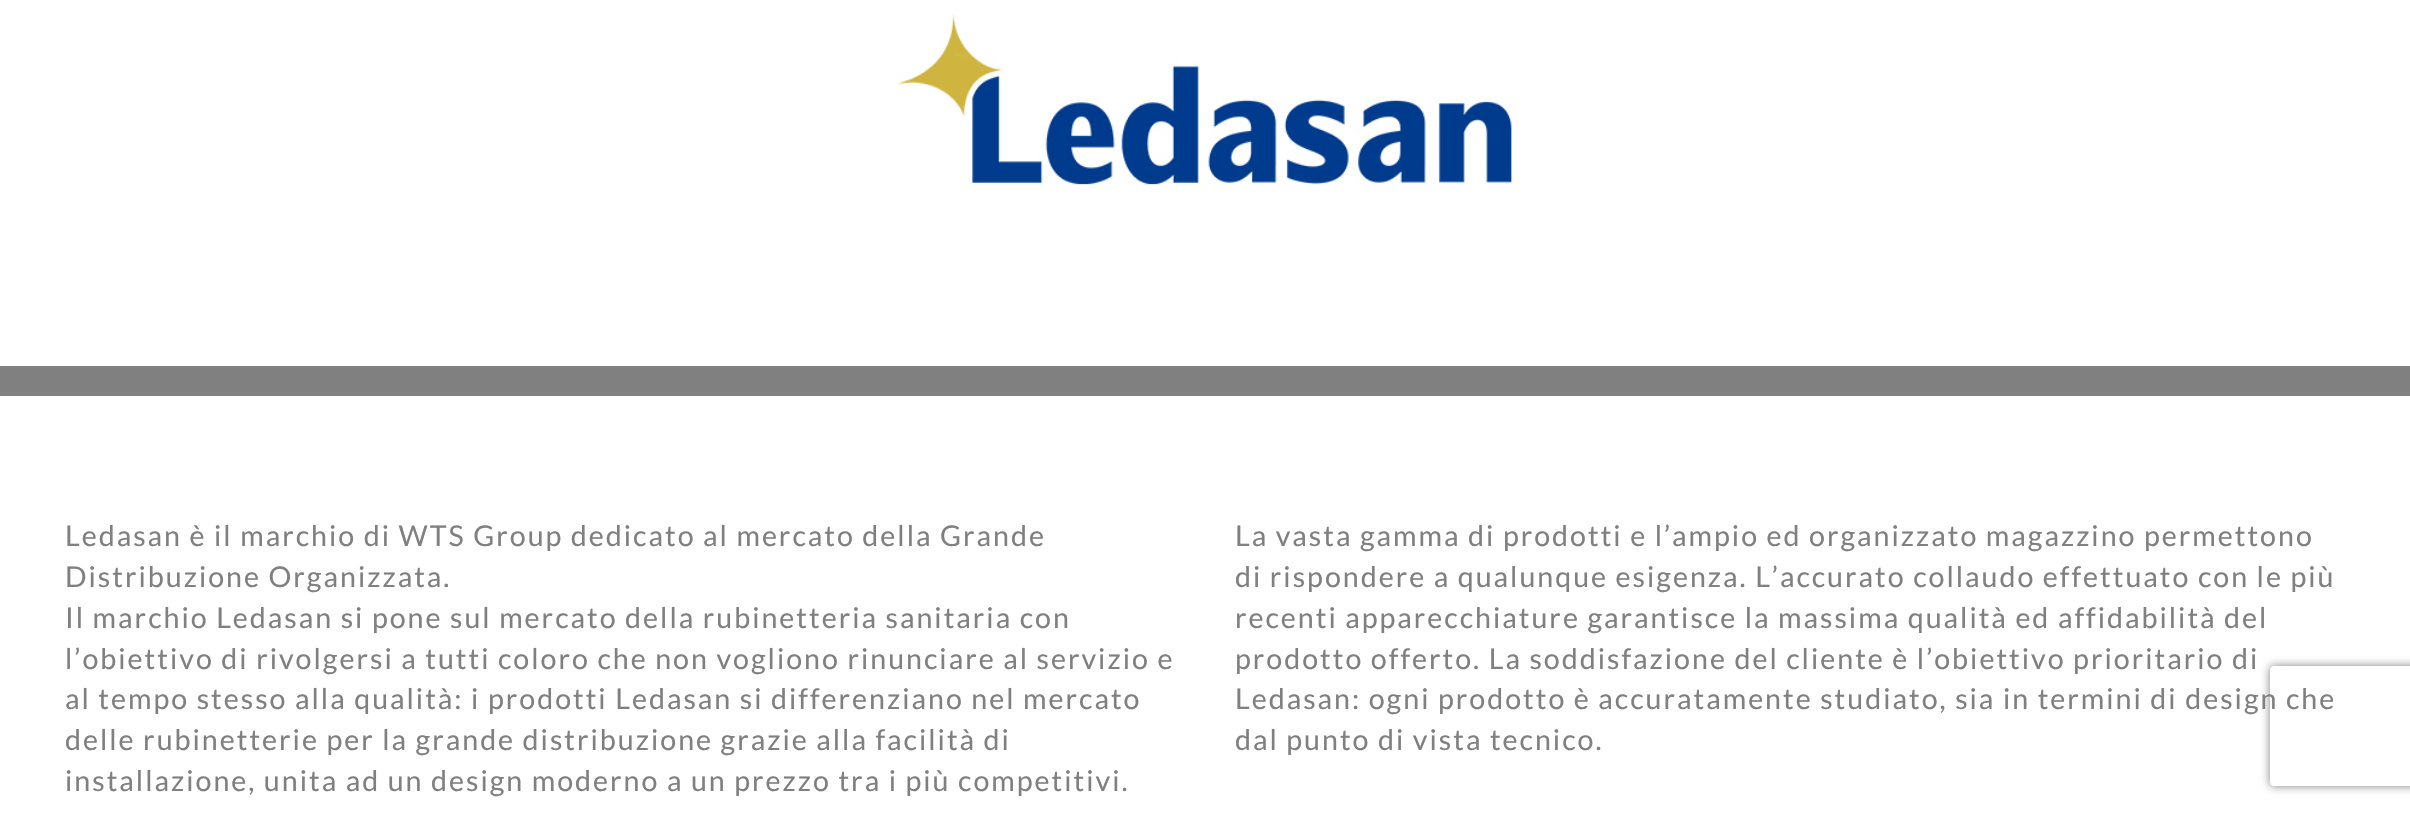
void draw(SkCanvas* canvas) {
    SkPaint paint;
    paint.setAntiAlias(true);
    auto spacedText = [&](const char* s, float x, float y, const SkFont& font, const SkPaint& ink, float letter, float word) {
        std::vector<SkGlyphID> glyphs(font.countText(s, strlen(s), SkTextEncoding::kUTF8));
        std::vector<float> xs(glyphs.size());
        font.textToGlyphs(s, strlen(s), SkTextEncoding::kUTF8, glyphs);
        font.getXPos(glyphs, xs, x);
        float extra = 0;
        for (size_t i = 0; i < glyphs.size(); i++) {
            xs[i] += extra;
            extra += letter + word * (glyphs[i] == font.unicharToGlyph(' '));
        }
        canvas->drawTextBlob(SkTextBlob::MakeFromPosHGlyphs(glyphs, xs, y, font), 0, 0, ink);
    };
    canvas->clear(0xFFFFFFFF);
    paint.setColor(0xFF808080);
    canvas->drawRect(SkRect::MakeXYWH(0, 366, 2410, 30), paint);
    canvas->drawImageRect(SkImages::DeferredFromEncodedData(SkData::MakeFromFileName("img1.png")), SkRect::MakeXYWH(897, 14, 615, 171), SkSamplingOptions());
    SkFont font1(fontMgr->matchFamilyStyle("Lato", SkFontStyle::Normal()), 28.6f);
    font1.setSubpixel(true);
    spacedText("Ledasan è il marchio di WTS Group dedicato al mercato della Grande", 65, 546, font1, paint, 2, 0);
    spacedText("Distribuzione Organizzata.", 65, 587, font1, paint, 2, 0);
    spacedText("Il marchio Ledasan si pone sul mercato della rubinetteria sanitaria con", 65, 628, font1, paint, 2, 0);
    spacedText("l’obiettivo di rivolgersi a tutti coloro che non vogliono rinunciare al servizio e", 65, 669, font1, paint, 2, 0);
    spacedText("al tempo stesso alla qualità: i prodotti Ledasan si differenziano nel mercato", 65, 709, font1, paint, 2, 0);
    spacedText("delle rubinetterie per la grande distribuzione grazie alla facilità di", 65, 750, font1, paint, 2, 0);
    spacedText("installazione, unita ad un design moderno a un prezzo tra i più competitivi.", 65, 791, font1, paint, 2, 0);
    spacedText("La vasta gamma di prodotti e l’ampio ed organizzato magazzino permettono", 1235, 546, font1, paint, 2, 0);
    spacedText("di rispondere a qualunque esigenza. L’accurato collaudo effettuato con le più", 1235, 587, font1, paint, 2, 0);
    spacedText("recenti apparecchiature garantisce la massima qualità ed affidabilità del", 1235, 628, font1, paint, 2, 0);
    spacedText("prodotto offerto. La soddisfazione del cliente è l’obiettivo prioritario di", 1235, 669, font1, paint, 2, 0);
    spacedText("Ledasan: ogni prodotto è accuratamente studiato, sia in termini di design che", 1235, 709, font1, paint, 2, 0);
    spacedText("dal punto di vista tecnico.", 1235, 750, font1, paint, 2, 0);
    canvas->save();
    canvas->clipPath(SkPathBuilder(SkPathFillType::kEvenOdd).moveTo(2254, 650).lineTo(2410, 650).lineTo(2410, 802).lineTo(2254, 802).close().moveTo(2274, 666).lineTo(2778, 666).cubicTo(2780, 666, 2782, 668, 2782, 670).lineTo(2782, 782).cubicTo(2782, 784, 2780, 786, 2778, 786).lineTo(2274, 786).cubicTo(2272, 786, 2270, 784, 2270, 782).lineTo(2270, 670).cubicTo(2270, 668, 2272, 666, 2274, 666).close().detach(), true);
    paint.setMaskFilter(SkMaskFilter::MakeBlur(kNormal_SkBlurStyle, 5));
    canvas->drawRoundRect(SkRect::MakeXYWH(2270, 666, 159, 120), 4, 4, paint);
    paint.setMaskFilter(nullptr);
    canvas->restore();
}
